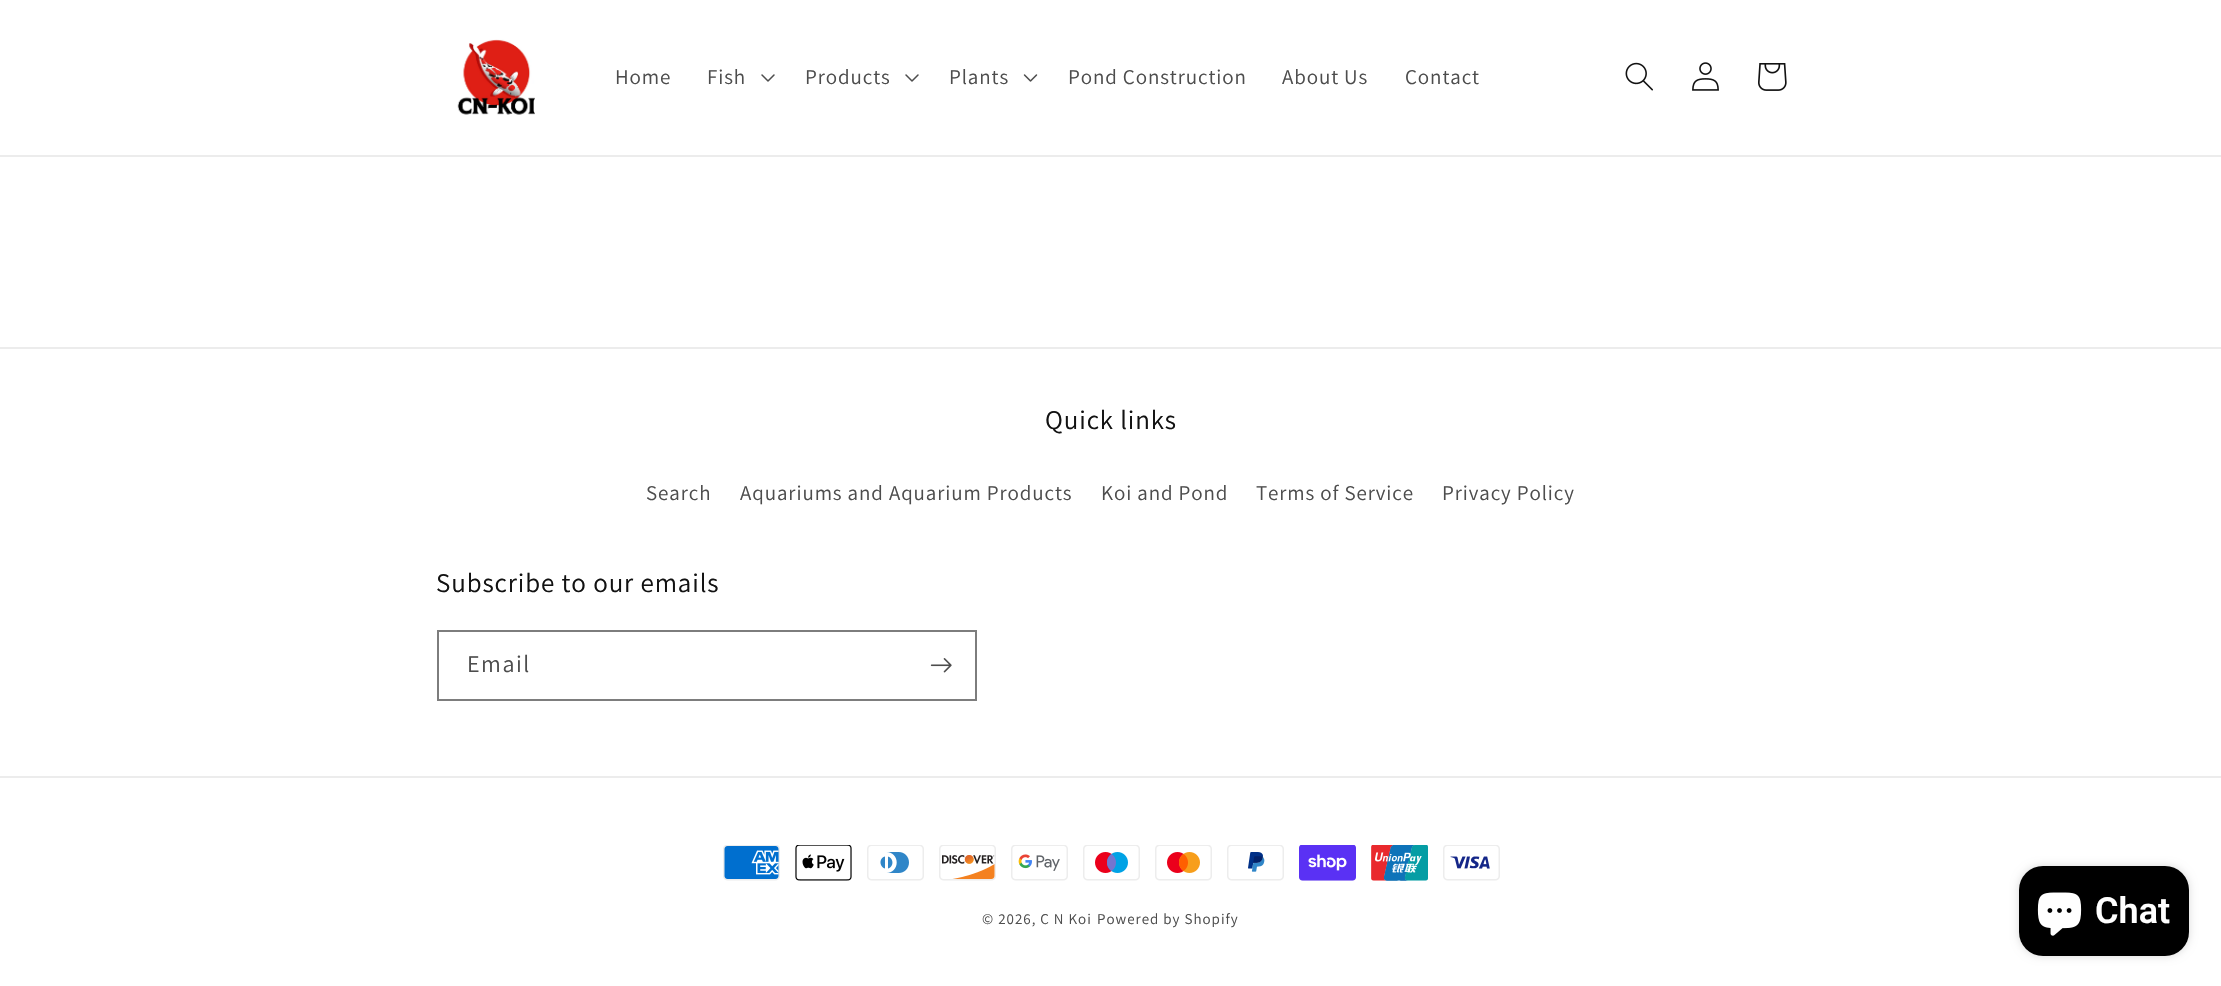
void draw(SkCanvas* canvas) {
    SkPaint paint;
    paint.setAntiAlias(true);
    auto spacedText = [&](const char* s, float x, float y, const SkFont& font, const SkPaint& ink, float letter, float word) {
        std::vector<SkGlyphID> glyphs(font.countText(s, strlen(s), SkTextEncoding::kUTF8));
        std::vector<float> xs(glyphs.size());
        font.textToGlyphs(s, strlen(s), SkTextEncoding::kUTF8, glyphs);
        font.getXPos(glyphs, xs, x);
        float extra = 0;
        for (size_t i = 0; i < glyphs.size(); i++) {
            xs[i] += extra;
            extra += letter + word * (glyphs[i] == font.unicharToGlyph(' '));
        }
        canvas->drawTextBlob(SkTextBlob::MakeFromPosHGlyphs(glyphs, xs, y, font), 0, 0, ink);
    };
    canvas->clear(0xFFFFFFFF);
    paint.setColor(0xFFECECEC);
    canvas->drawRect(SkRect::MakeXYWH(0, 155, 2221, 2), paint);
    canvas->drawImageRect(SkImages::DeferredFromEncodedData(SkData::MakeFromFileName("img1.png")), SkRect::MakeXYWH(457, 39, 78, 76), SkSamplingOptions());
    SkFont font1(fontMgr->matchFamilyStyle("Assistant", SkFontStyle::Normal()), 21);
    font1.setSubpixel(true);
    paint.setColor(0xFF4D4D4D);
    spacedText("Home", 615, 84, font1, paint, 0.9f, 0);
    spacedText("Fish", 707, 84, font1, paint, 0.9f, 0);
    canvas->drawImageRect(SkImages::DeferredFromEncodedData(SkData::MakeFromFileName("img2.png")), SkRect::MakeXYWH(761, 74, 14, 8), SkSamplingOptions());
    spacedText("Products", 805, 84, font1, paint, 0.9f, 0);
    canvas->drawImageRect(SkImages::DeferredFromEncodedData(SkData::MakeFromFileName("img2.png")), SkRect::MakeXYWH(905, 74, 14, 8), SkSamplingOptions());
    spacedText("Plants", 949, 84, font1, paint, 0.9f, 0);
    canvas->drawImageRect(SkImages::DeferredFromEncodedData(SkData::MakeFromFileName("img3.png")), SkRect::MakeXYWH(1023, 74, 15, 8), SkSamplingOptions());
    spacedText("Pond Construction", 1068, 84, font1, paint, 0.9f, 0);
    spacedText("About Us", 1282, 84, font1, paint, 0.9f, 0);
    spacedText("Contact", 1405, 84, font1, paint, 0.9f, 0);
    canvas->drawImageRect(SkImages::DeferredFromEncodedData(SkData::MakeFromFileName("img4.png")), SkRect::MakeXYWH(1625, 62, 28, 29), SkSamplingOptions());
    canvas->drawImageRect(SkImages::DeferredFromEncodedData(SkData::MakeFromFileName("img5.png")), SkRect::MakeXYWH(1692, 62, 27, 29), SkSamplingOptions());
    canvas->drawImageRect(SkImages::DeferredFromEncodedData(SkData::MakeFromFileName("img6.png")), SkRect::MakeXYWH(1758, 63, 29, 28), SkSamplingOptions());
    paint.setColor(0xFFECECEC);
    canvas->drawRect(SkRect::MakeXYWH(0, 347, 2221, 2), paint);
    SkFont font2(fontMgr->matchFamilyStyle("Assistant", SkFontStyle::Normal()), 27);
    font2.setSubpixel(true);
    paint.setColor(0xFF121212);
    spacedText("Quick links", 1045, 429, font2, paint, 0.9f, 0);
    paint.setColor(0xFF4D4D4D);
    spacedText("Search", 646, 500, font1, paint, 0.9f, 0);
    spacedText("Aquariums and Aquarium Products", 740, 500, font1, paint, 0.9f, 0);
    spacedText("Koi and Pond", 1101, 500, font1, paint, 0.9f, 0);
    spacedText("Terms of Service", 1256, 500, font1, paint, 0.9f, 0);
    spacedText("Privacy Policy", 1442, 500, font1, paint, 0.9f, 0);
    paint.setColor(0xFF121212);
    spacedText("Subscribe to our emails", 436, 592, font2, paint, 0.9f, 0);
    paint.setStyle(SkPaint::kStroke_Style);
    paint.setStrokeWidth(2);
    paint.setColor(0xFF7D7D7D);
    canvas->drawRect(SkRect::MakeXYWH(438, 631, 538, 69), paint);
    SkFont font3(fontMgr->matchFamilyStyle("Assistant", SkFontStyle::Normal()), 24);
    font3.setSubpixel(true);
    paint.setStyle(SkPaint::kFill_Style);
    paint.setColor(0xFF4D4D4D);
    spacedText("Email", 467, 672, font3, paint, 1.5f, 0);
    canvas->drawImageRect(SkImages::DeferredFromEncodedData(SkData::MakeFromFileName("img7.png")), SkRect::MakeXYWH(930, 658, 22, 15), SkSamplingOptions());
    paint.setColor(0xFFECECEC);
    canvas->drawRect(SkRect::MakeXYWH(0, 776, 2221, 2), paint);
    canvas->drawImageRect(SkImages::DeferredFromEncodedData(SkData::MakeFromFileName("img8.png")), SkRect::MakeXYWH(723, 845, 57, 36), SkSamplingOptions());
    canvas->drawImageRect(SkImages::DeferredFromEncodedData(SkData::MakeFromFileName("img9.png")), SkRect::MakeXYWH(795, 845, 57, 36), SkSamplingOptions());
    canvas->drawImageRect(SkImages::DeferredFromEncodedData(SkData::MakeFromFileName("img10.png")), SkRect::MakeXYWH(867, 845, 57, 36), SkSamplingOptions());
    canvas->drawImageRect(SkImages::DeferredFromEncodedData(SkData::MakeFromFileName("img11.png")), SkRect::MakeXYWH(939, 845, 57, 36), SkSamplingOptions());
    canvas->drawImageRect(SkImages::DeferredFromEncodedData(SkData::MakeFromFileName("img12.png")), SkRect::MakeXYWH(1011, 845, 57, 36), SkSamplingOptions());
    canvas->drawImageRect(SkImages::DeferredFromEncodedData(SkData::MakeFromFileName("img13.png")), SkRect::MakeXYWH(1083, 845, 57, 36), SkSamplingOptions());
    canvas->drawImageRect(SkImages::DeferredFromEncodedData(SkData::MakeFromFileName("img14.png")), SkRect::MakeXYWH(1155, 845, 57, 36), SkSamplingOptions());
    canvas->drawImageRect(SkImages::DeferredFromEncodedData(SkData::MakeFromFileName("img15.png")), SkRect::MakeXYWH(1227, 845, 57, 36), SkSamplingOptions());
    canvas->drawImageRect(SkImages::DeferredFromEncodedData(SkData::MakeFromFileName("img16.png")), SkRect::MakeXYWH(1299, 845, 57, 36), SkSamplingOptions());
    canvas->drawImageRect(SkImages::DeferredFromEncodedData(SkData::MakeFromFileName("img17.png")), SkRect::MakeXYWH(1371, 845, 57, 36), SkSamplingOptions());
    canvas->drawImageRect(SkImages::DeferredFromEncodedData(SkData::MakeFromFileName("img18.png")), SkRect::MakeXYWH(1443, 845, 57, 36), SkSamplingOptions());
    SkFont font4(fontMgr->matchFamilyStyle("Assistant", SkFontStyle::Normal()), 15);
    font4.setSubpixel(true);
    paint.setColor(0xFF4D4D4D);
    spacedText("© 2026, C N Koi", 982, 924, font4, paint, 1, 0);
    spacedText("Powered by Shopify", 1097, 924, font4, paint, 1, 0);
    paint.setColor(0x26000000);
    paint.setMaskFilter(SkMaskFilter::MakeBlur(kNormal_SkBlurStyle, 4));
    canvas->drawRoundRect(SkRect::MakeXYWH(2019, 866, 170, 90), 24, 24, paint);
    paint.setMaskFilter(nullptr);
    paint.setColor(0xFF000000);
    canvas->drawRoundRect(SkRect::MakeXYWH(2019, 866, 170, 90), 24, 24, paint);
    canvas->drawImageRect(SkImages::DeferredFromEncodedData(SkData::MakeFromFileName("img19.png")), SkRect::MakeXYWH(2037, 892, 45, 44), SkSamplingOptions());
    SkFont font5(fontMgr->matchFamilyStyle("Roboto", SkFontStyle(600, SkFontStyle::kNormal_Width, SkFontStyle::kUpright_Slant)), 36);
    font5.setSubpixel(true);
    paint.setColor(0xFFFFFFFF);
    canvas->drawString("Chat", 2095, 923, font5, paint);
}
